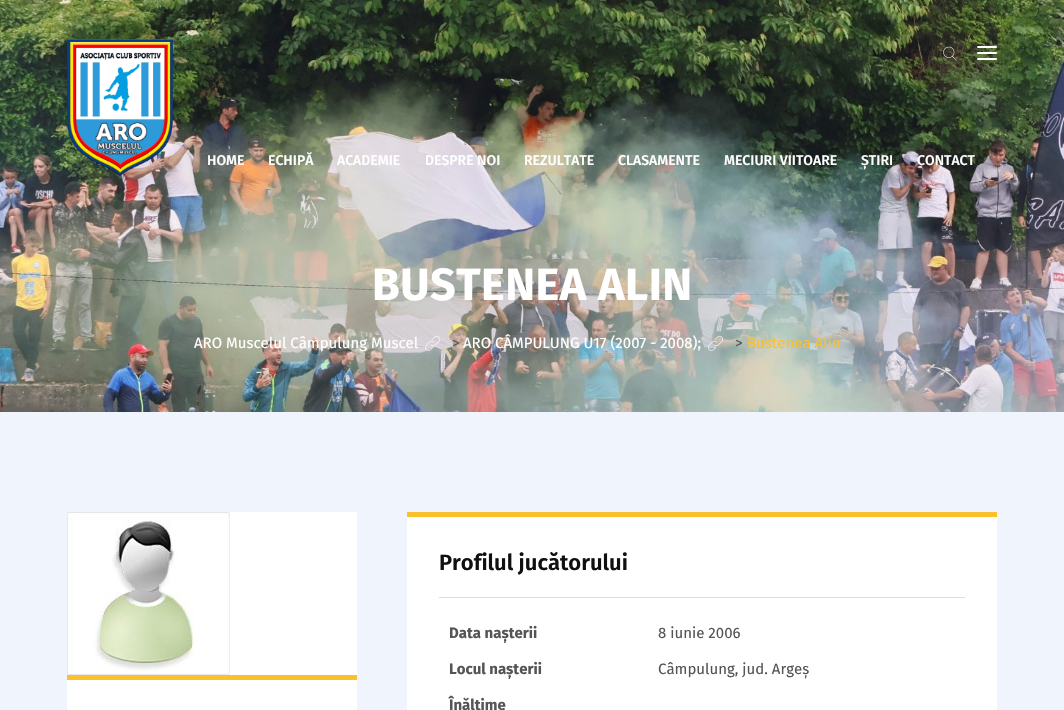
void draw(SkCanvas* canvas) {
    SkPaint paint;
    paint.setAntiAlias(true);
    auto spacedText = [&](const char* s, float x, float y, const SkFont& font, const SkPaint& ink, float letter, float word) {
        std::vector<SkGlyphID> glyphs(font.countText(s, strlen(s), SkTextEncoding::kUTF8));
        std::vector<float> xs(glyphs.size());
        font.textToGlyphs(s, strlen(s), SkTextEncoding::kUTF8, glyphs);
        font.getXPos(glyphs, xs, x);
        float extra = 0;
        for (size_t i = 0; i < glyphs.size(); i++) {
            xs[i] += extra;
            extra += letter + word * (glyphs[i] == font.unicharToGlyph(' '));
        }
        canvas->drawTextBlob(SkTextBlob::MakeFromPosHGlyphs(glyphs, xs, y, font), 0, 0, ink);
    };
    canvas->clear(0xFFEFF4FD);
    canvas->drawImageRect(SkImages::DeferredFromEncodedData(SkData::MakeFromFileName("img3.png")), SkRect::MakeXYWH(0, 0, 1064, 412), SkSamplingOptions());
    canvas->drawImageRect(SkImages::DeferredFromEncodedData(SkData::MakeFromFileName("img1.png")), SkRect::MakeXYWH(67, 39, 106, 137), SkSamplingOptions());
    canvas->drawImageRect(SkImages::DeferredFromEncodedData(SkData::MakeFromFileName("img2.png")), SkRect::MakeXYWH(943, 46, 14, 15), SkSamplingOptions());
    paint.setColor(0xFFFFFFFF);
    canvas->drawRoundRect(SkRect::MakeXYWH(977, 46, 20, 2), 1, 1, paint);
    canvas->drawRoundRect(SkRect::MakeXYWH(977, 52, 20, 2), 1, 1, paint);
    canvas->drawRoundRect(SkRect::MakeXYWH(977, 58, 20, 2), 1, 1, paint);
    SkFont font1(fontMgr->matchFamilyStyle("Fira Sans", SkFontStyle(500, SkFontStyle::kNormal_Width, SkFontStyle::kUpright_Slant)), 14);
    font1.setSubpixel(true);
    canvas->drawString("HOME", 207, 165, font1, paint);
    canvas->drawString("ECHIPĂ", 268, 165, font1, paint);
    canvas->drawString("ACADEMIE", 337, 165, font1, paint);
    canvas->drawString("DESPRE NOI", 425, 165, font1, paint);
    canvas->drawString("REZULTATE", 524, 165, font1, paint);
    canvas->drawString("CLASAMENTE", 618, 165, font1, paint);
    canvas->drawString("MECIURI VIITOARE", 724, 165, font1, paint);
    canvas->drawString("ȘTIRI", 861, 165, font1, paint);
    canvas->drawString("CONTACT", 917, 165, font1, paint);
    SkFont font2(fontMgr->matchFamilyStyle("Fira Sans", SkFontStyle::Bold()), 45);
    font2.setSubpixel(true);
    spacedText("BUSTENEA ALIN", 372, 300, font2, paint, 0.5f, 0);
    SkFont font3(fontMgr->matchFamilyStyle("Fira Sans", SkFontStyle::Normal()), 15);
    font3.setSubpixel(true);
    canvas->drawString("ARO Muscelul Câmpulung Muscel", 194, 348, font3, paint);
    canvas->drawImageRect(SkImages::DeferredFromEncodedData(SkData::MakeFromFileName("img4.png")), SkRect::MakeXYWH(425, 336, 15, 15), SkSamplingOptions());
    paint.setColor(0xFF555555);
    canvas->drawString(">", 452, 348, font3, paint);
    paint.setColor(0xFFFFFFFF);
    canvas->drawString("ARO CÂMPULUNG U17 (2007 - 2008);", 463, 348, font3, paint);
    canvas->drawImageRect(SkImages::DeferredFromEncodedData(SkData::MakeFromFileName("img5.png")), SkRect::MakeXYWH(708, 335, 15, 16), SkSamplingOptions());
    paint.setColor(0xFF555555);
    canvas->drawString(">", 735, 348, font3, paint);
    paint.setColor(0xFFFBC02D);
    canvas->drawString("Bustenea Alin", 747, 348, font3, paint);
    paint.setColor(0xFFFFFFFF);
    canvas->drawRect(SkRect::MakeXYWH(67, 512, 290, 198), paint);
    canvas->drawImageRect(SkImages::DeferredFromEncodedData(SkData::MakeFromFileName("img6.png")), SkRect::MakeXYWH(67, 512, 163, 163), SkSamplingOptions());
    paint.setColor(0xFFFBC02D);
    canvas->drawRect(SkRect::MakeXYWH(67, 675, 290, 5), paint);
    paint.setColor(0xFFFFFFFF);
    canvas->drawRect(SkRect::MakeXYWH(407, 517, 590, 193), paint);
    paint.setColor(0xFFFBC02D);
    canvas->drawRect(SkRect::MakeXYWH(407, 512, 590, 5), paint);
    paint.setColor(0xFFDDDDDD);
    canvas->drawRect(SkRect::MakeXYWH(439, 597, 526, 1), paint);
    SkFont font4(fontMgr->matchFamilyStyle("Fira Sans", SkFontStyle(600, SkFontStyle::kNormal_Width, SkFontStyle::kUpright_Slant)), 22);
    font4.setSubpixel(true);
    paint.setColor(0xFF101010);
    canvas->drawString("Profilul jucătorului", 439, 570, font4, paint);
    SkFont font5(fontMgr->matchFamilyStyle("Fira Sans", SkFontStyle::Bold()), 15);
    font5.setSubpixel(true);
    paint.setColor(0xFF555555);
    canvas->drawString("Data nașterii", 449, 638, font5, paint);
    canvas->drawString("8 iunie 2006", 658, 638, font3, paint);
    canvas->drawString("Locul nașterii", 449, 674, font5, paint);
    canvas->drawString("Câmpulung, jud. Argeș", 658, 674, font3, paint);
    canvas->drawString("Înălțime", 449, 710, font5, paint);
}
